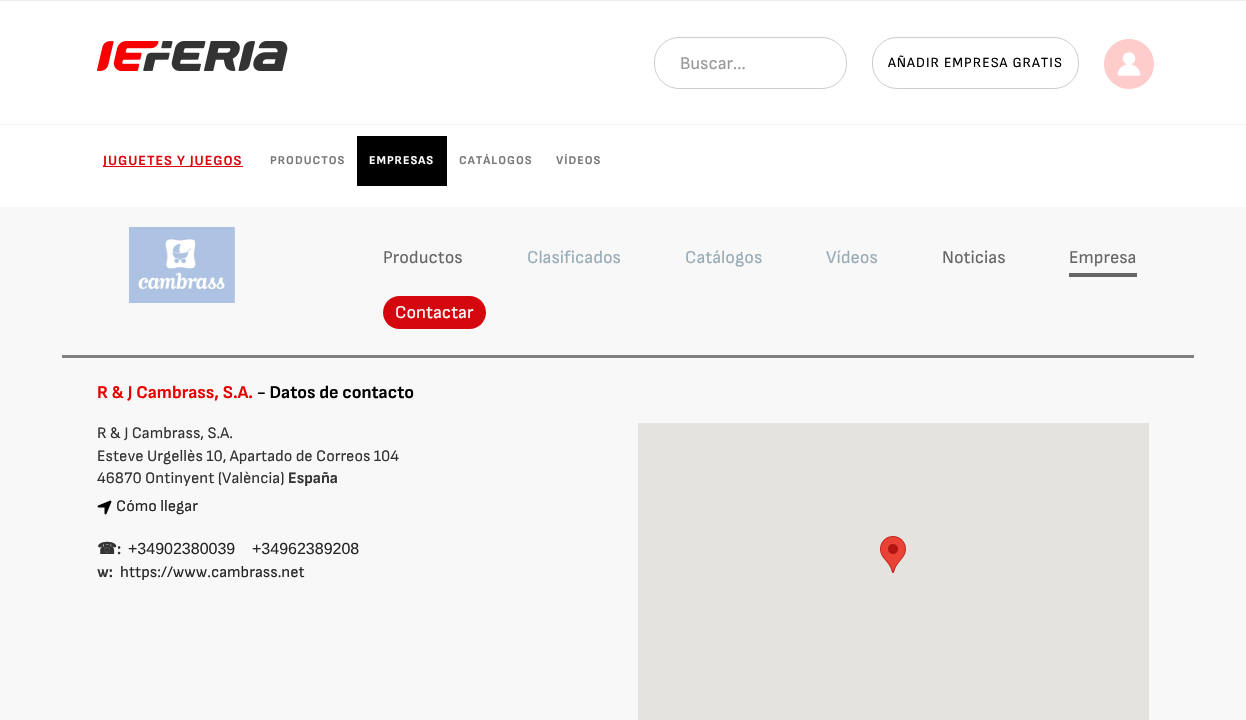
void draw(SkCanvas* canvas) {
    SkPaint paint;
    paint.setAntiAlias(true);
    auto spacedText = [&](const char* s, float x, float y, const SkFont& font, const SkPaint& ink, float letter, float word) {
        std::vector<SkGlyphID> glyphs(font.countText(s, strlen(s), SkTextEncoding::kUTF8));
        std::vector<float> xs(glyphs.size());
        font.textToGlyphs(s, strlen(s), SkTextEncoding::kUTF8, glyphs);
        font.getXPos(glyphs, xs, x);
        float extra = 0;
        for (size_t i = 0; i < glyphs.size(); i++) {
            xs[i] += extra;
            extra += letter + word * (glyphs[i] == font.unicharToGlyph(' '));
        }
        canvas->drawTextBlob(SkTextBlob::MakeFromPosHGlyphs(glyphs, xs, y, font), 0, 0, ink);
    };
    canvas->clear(0xFFFFFFFF);
    paint.setColor(0xFFECEEF0);
    canvas->drawRect(SkRect::MakeXYWH(0, 0, 1246, 1), paint);
    canvas->drawImageRect(SkImages::DeferredFromEncodedData(SkData::MakeFromFileName("img1.png")), SkRect::MakeXYWH(97, 41, 191, 30), SkSamplingOptions());
    paint.setStyle(SkPaint::kStroke_Style);
    paint.setStrokeWidth(1);
    paint.setColor(0xFFCCCCCC);
    canvas->drawRoundRect(SkRect::MakeXYWH(654.5f, 37.5f, 192, 51), 24.5f, 24.5f, paint);
    SkFont font1(fontMgr->matchFamilyStyle("Sofia Sans", SkFontStyle::Normal()), 18);
    font1.setSubpixel(true);
    paint.setStyle(SkPaint::kFill_Style);
    paint.setColor(0xFF999999);
    canvas->drawString("Buscar...", 680, 69, font1, paint);
    paint.setStyle(SkPaint::kStroke_Style);
    paint.setColor(0xFFCCCCCC);
    canvas->drawRoundRect(SkRect::MakeXYWH(872.5f, 37.5f, 206, 51), 24.5f, 24.5f, paint);
    SkFont font2(fontMgr->matchFamilyStyle("Sofia Sans", SkFontStyle::Normal()), 14);
    font2.setSubpixel(true);
    paint.setStyle(SkPaint::kFill_Style);
    paint.setColor(0xFF000000);
    spacedText("AÑADIR EMPRESA GRATIS", 888, 67, font2, paint, 1, 0);
    canvas->drawImageRect(SkImages::DeferredFromEncodedData(SkData::MakeFromFileName("img2.png")), SkRect::MakeXYWH(1104, 39, 50, 50), SkSamplingOptions());
    paint.setColor(0xFFF1F1F1);
    canvas->drawRect(SkRect::MakeXYWH(0, 124, 1246, 1), paint);
    paint.setColor(0xFFDC070F);
    canvas->drawRect(SkRect::MakeXYWH(103, 166, 140, 1), paint);
    SkFont font3(fontMgr->matchFamilyStyle("Sofia Sans", SkFontStyle::Bold()), 14);
    font3.setSubpixel(true);
    spacedText("JUGUETES Y JUEGOS", 103, 165, font3, paint, 1, 0);
    SkFont font4(fontMgr->matchFamilyStyle("Sofia Sans", SkFontStyle::Bold()), 12);
    font4.setSubpixel(true);
    paint.setColor(0xFF777777);
    spacedText("PRODUCTOS", 270, 164, font4, paint, 1, 0);
    paint.setColor(0xFF000000);
    canvas->drawRect(SkRect::MakeXYWH(357, 136, 90, 50), paint);
    paint.setColor(0xFFFFFFFF);
    spacedText("EMPRESAS", 369, 164, font4, paint, 1, 0);
    paint.setColor(0xFF777777);
    spacedText("CATÁLOGOS", 459, 164, font4, paint, 1, 0);
    spacedText("VÍDEOS", 556, 164, font4, paint, 1, 0);
    paint.setColor(0xFFF8F8F8);
    canvas->drawRect(SkRect::MakeXYWH(0, 207, 1246, 513), paint);
    paint.setColor(0xFF808080);
    canvas->drawRect(SkRect::MakeXYWH(62, 355, 1132, 3), paint);
    canvas->drawImageRect(SkImages::DeferredFromEncodedData(SkData::MakeFromFileName("img3.png")), SkRect::MakeXYWH(129, 227, 106, 76), SkSamplingOptions());
    paint.setColor(0xFF666666);
    canvas->drawString("Productos", 383, 263, font1, paint);
    paint.setColor(0xFF98ABB6);
    canvas->drawString("Clasificados", 527, 263, font1, paint);
    canvas->drawString("Catálogos", 685, 263, font1, paint);
    canvas->drawString("Vídeos", 826, 263, font1, paint);
    paint.setColor(0xFF666666);
    canvas->drawString("Noticias", 942, 263, font1, paint);
    canvas->drawRect(SkRect::MakeXYWH(1069, 273, 68, 4), paint);
    canvas->drawString("Empresa", 1069, 263, font1, paint);
    paint.setColor(0xFFD4070E);
    canvas->drawRoundRect(SkRect::MakeXYWH(383, 296, 103, 33), 16.5f, 16.5f, paint);
    paint.setColor(0xFFFFFFFF);
    canvas->drawString("Contactar", 395, 318, font1, paint);
    SkFont font5(fontMgr->matchFamilyStyle("Sofia Sans", SkFontStyle::Bold()), 18);
    font5.setSubpixel(true);
    paint.setColor(0xFFE80000);
    canvas->drawString("R & J Cambrass, S.A.", 97, 398, font5, paint);
    paint.setColor(0xFF000000);
    canvas->drawString("- Datos de contacto", 257, 398, font5, paint);
    SkFont font6(fontMgr->matchFamilyStyle("Sofia Sans", SkFontStyle::Normal()), 16);
    font6.setSubpixel(true);
    paint.setColor(0xFF333333);
    canvas->drawString("R & J Cambrass, S.A.", 97, 438, font6, paint);
    canvas->drawString("Esteve Urgellès 10, Apartado de Correos 104", 97, 461, font6, paint);
    canvas->drawString("46870 Ontinyent (València)", 97, 483, font6, paint);
    SkFont font7(fontMgr->matchFamilyStyle("Sofia Sans", SkFontStyle::Bold()), 16);
    font7.setSubpixel(true);
    canvas->drawString("España", 288, 483, font7, paint);
    canvas->drawImageRect(SkImages::DeferredFromEncodedData(SkData::MakeFromFileName("img4.png")), SkRect::MakeXYWH(97, 500, 15, 15), SkSamplingOptions());
    paint.setColor(0xFF262626);
    canvas->drawString("Cómo llegar", 116, 511, font6, paint);
    SkFont font8(fontMgr->matchFamilyStyle("DejaVu Sans", SkFontStyle::Bold()), 16);
    font8.setSubpixel(true);
    paint.setColor(0xFF333333);
    canvas->drawString("☎", 97, 554, font8, paint);
    canvas->drawString(":", 117, 554, font7, paint);
    SkFont font9(fontMgr->matchFamilyStyle("Liberation Sans", SkFontStyle::Normal()), 16);
    font9.setSubpixel(true);
    paint.setColor(0xFF262626);
    canvas->drawString("+34‑902380039", 128, 554, font9, paint);
    canvas->drawString("+34‑962389208", 252, 554, font9, paint);
    paint.setColor(0xFF333333);
    canvas->drawString("w:", 97, 577, font7, paint);
    paint.setColor(0xFF262626);
    canvas->drawString("https://www.cambrass.net", 120, 577, font6, paint);
    paint.setColor(0xFFE5E3DF);
    canvas->drawRect(SkRect::MakeXYWH(638, 423, 511, 297), paint);
    canvas->drawImageRect(SkImages::DeferredFromEncodedData(SkData::MakeFromFileName("img5.png")), SkRect::MakeXYWH(880, 536, 26, 37), SkSamplingOptions());
}
